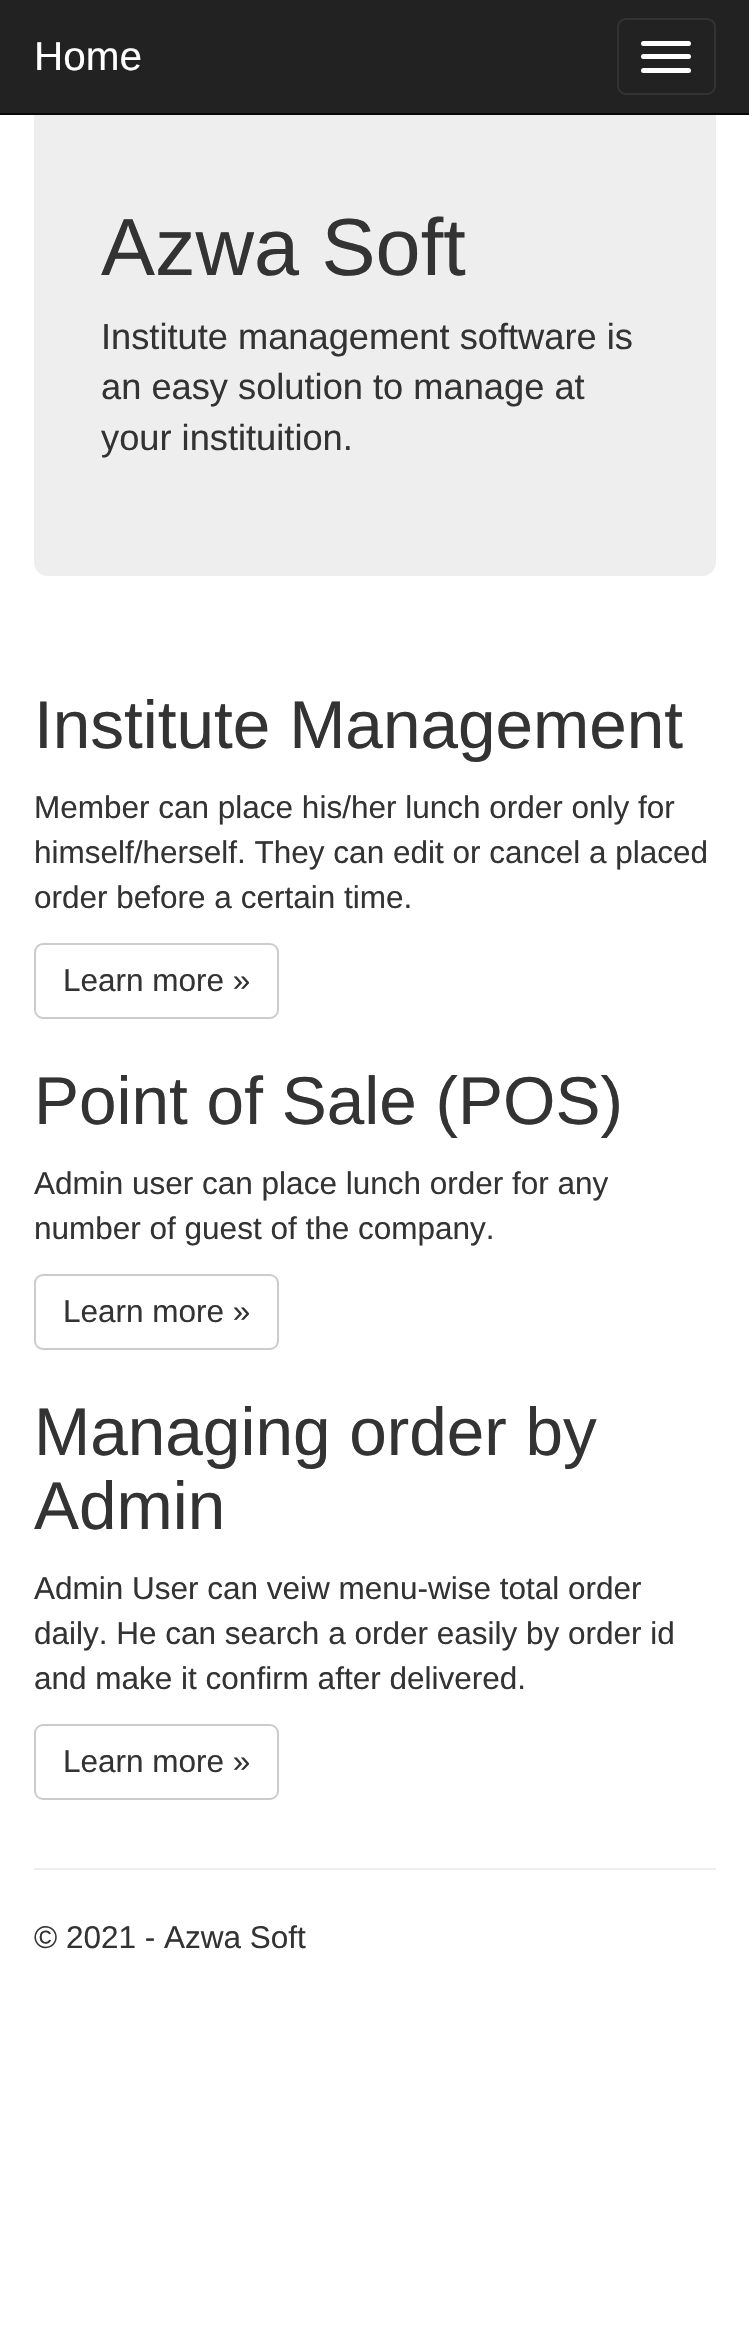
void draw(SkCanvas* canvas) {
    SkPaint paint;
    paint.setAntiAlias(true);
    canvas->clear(0xFFFFFFFF);
    paint.setColor(0xFFEEEEEE);
    canvas->drawRoundRect(SkRect::MakeXYWH(34, 0, 682, 576), 14, 14, paint);
    paint.setColor(0xFF222222);
    canvas->drawRect(SkRect::MakeXYWH(0, 0, 749, 113), paint);
    paint.setColor(0xFF080808);
    canvas->drawRect(SkRect::MakeXYWH(0, 113, 749, 2), paint);
    SkFont font1(fontMgr->matchFamilyStyle("Liberation Sans", SkFontStyle::Normal()), 40.5f);
    font1.setSubpixel(true);
    paint.setColor(0xFFFFFFFF);
    canvas->drawString("Home", 34, 70, font1, paint);
    paint.setStyle(SkPaint::kStroke_Style);
    paint.setStrokeWidth(2);
    paint.setColor(0xFF333333);
    canvas->drawRoundRect(SkRect::MakeXYWH(618, 19, 97, 75), 8, 8, paint);
    paint.setStyle(SkPaint::kFill_Style);
    paint.setColor(0xFFFFFFFF);
    canvas->drawRoundRect(SkRect::MakeXYWH(641, 41, 50, 5), 2.5f, 2.5f, paint);
    canvas->drawRoundRect(SkRect::MakeXYWH(641, 54, 50, 5), 2.5f, 2.5f, paint);
    canvas->drawRoundRect(SkRect::MakeXYWH(641, 68, 50, 5), 2.5f, 2.5f, paint);
    SkFont font2(fontMgr->matchFamilyStyle("Liberation Sans", SkFontStyle::Normal()), 81);
    font2.setSubpixel(true);
    paint.setColor(0xFF333333);
    canvas->drawString("Azwa Soft", 101, 275, font2, paint);
    SkFont font3(fontMgr->matchFamilyStyle("Liberation Sans", SkFontStyle::Normal()), 36.25f);
    font3.setSubpixel(true);
    canvas->drawString("Institute management software is", 101, 349, font3, paint);
    canvas->drawString("an easy solution to manage at", 101, 399, font3, paint);
    canvas->drawString("your instituition.", 101, 450, font3, paint);
    SkFont font4(fontMgr->matchFamilyStyle("Liberation Sans", SkFontStyle::Normal()), 67.5f);
    font4.setSubpixel(true);
    canvas->drawString("Institute Management", 34, 748, font4, paint);
    SkFont font5(fontMgr->matchFamilyStyle("Liberation Sans", SkFontStyle::Normal()), 31.5f);
    font5.setSubpixel(true);
    canvas->drawString("Member can place his/her lunch order only for", 34, 818, font5, paint);
    canvas->drawString("himself/herself. They can edit or cancel a placed", 34, 863, font5, paint);
    canvas->drawString("order before a certain time.", 34, 908, font5, paint);
    paint.setStyle(SkPaint::kStroke_Style);
    paint.setColor(0xFFCCCCCC);
    canvas->drawRoundRect(SkRect::MakeXYWH(35, 944, 243, 74), 8, 8, paint);
    paint.setStyle(SkPaint::kFill_Style);
    paint.setColor(0xFF333333);
    canvas->drawString("Learn more »", 63, 991, font5, paint);
    canvas->drawString("Point of Sale (POS)", 34, 1124, font4, paint);
    canvas->drawString("Admin user can place lunch order for any", 34, 1194, font5, paint);
    canvas->drawString("number of guest of the company.", 34, 1239, font5, paint);
    paint.setStyle(SkPaint::kStroke_Style);
    paint.setColor(0xFFCCCCCC);
    canvas->drawRoundRect(SkRect::MakeXYWH(35, 1275, 243, 74), 8, 8, paint);
    paint.setStyle(SkPaint::kFill_Style);
    paint.setColor(0xFF333333);
    canvas->drawString("Learn more »", 63, 1322, font5, paint);
    canvas->drawString("Managing order by", 34, 1455, font4, paint);
    canvas->drawString("Admin", 34, 1529, font4, paint);
    canvas->drawString("Admin User can veiw menu-wise total order", 34, 1599, font5, paint);
    canvas->drawString("daily. He can search a order easily by order id", 34, 1644, font5, paint);
    canvas->drawString("and make it confirm after delivered.", 34, 1689, font5, paint);
    paint.setStyle(SkPaint::kStroke_Style);
    paint.setColor(0xFFCCCCCC);
    canvas->drawRoundRect(SkRect::MakeXYWH(35, 1725, 243, 74), 8, 8, paint);
    paint.setStyle(SkPaint::kFill_Style);
    paint.setColor(0xFF333333);
    canvas->drawString("Learn more »", 63, 1772, font5, paint);
    paint.setColor(0xFFEEEEEE);
    canvas->drawRect(SkRect::MakeXYWH(34, 1868, 682, 2), paint);
    paint.setColor(0xFF333333);
    canvas->drawString("© 2021 - Azwa Soft", 34, 1948, font5, paint);
}
